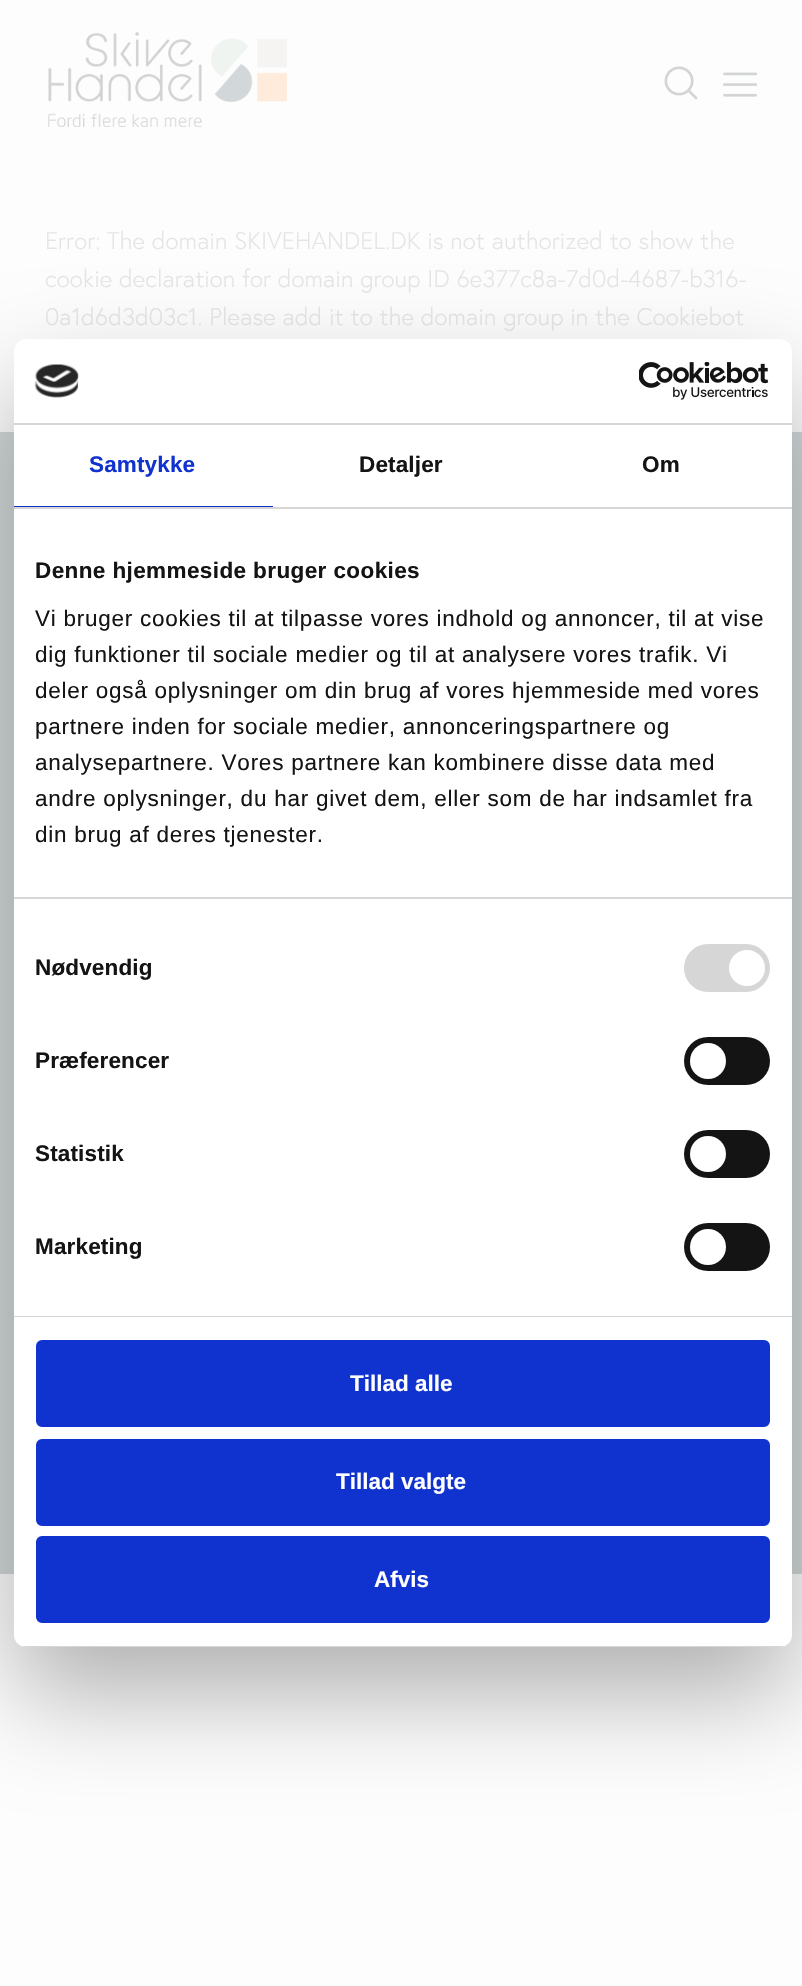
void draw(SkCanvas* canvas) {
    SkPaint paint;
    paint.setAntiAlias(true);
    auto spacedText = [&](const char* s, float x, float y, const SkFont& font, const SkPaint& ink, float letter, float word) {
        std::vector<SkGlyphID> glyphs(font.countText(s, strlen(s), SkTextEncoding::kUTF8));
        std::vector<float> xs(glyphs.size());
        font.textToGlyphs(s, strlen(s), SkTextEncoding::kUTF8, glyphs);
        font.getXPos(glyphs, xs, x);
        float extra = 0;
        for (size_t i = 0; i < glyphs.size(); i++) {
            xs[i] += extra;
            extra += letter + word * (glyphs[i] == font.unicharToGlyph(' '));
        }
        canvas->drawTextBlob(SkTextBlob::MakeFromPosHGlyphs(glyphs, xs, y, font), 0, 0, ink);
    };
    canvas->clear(0xFFFDFDFD);
    canvas->drawImageRect(SkImages::DeferredFromEncodedData(SkData::MakeFromFileName("img1.png")), SkRect::MakeXYWH(48, 32, 239, 95), SkSamplingOptions());
    canvas->drawImageRect(SkImages::DeferredFromEncodedData(SkData::MakeFromFileName("img2.png")), SkRect::MakeXYWH(664, 66, 34, 34), SkSamplingOptions());
    canvas->drawImageRect(SkImages::DeferredFromEncodedData(SkData::MakeFromFileName("img3.png")), SkRect::MakeXYWH(723, 72, 35, 25), SkSamplingOptions());
    SkFont font1(fontMgr->matchFamilyStyle("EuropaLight", SkFontStyle(300, SkFontStyle::kNormal_Width, SkFontStyle::kUpright_Slant)), 24);
    font1.setSubpixel(true);
    paint.setColor(0xFFE4E5E6);
    spacedText("Error: The domain SKIVEHANDEL.DK is not authorized to show the", 45, 249, font1, paint, 0.15f, 0);
    spacedText("cookie declaration for domain group ID 6e377c8a-7d0d-4687-b316-", 45, 287, font1, paint, 0.15f, 0);
    spacedText("0a1d6d3d03c1. Please add it to the domain group in the Cookiebot", 45, 325, font1, paint, 0.15f, 0);
    paint.setColor(0xFFD2D8D9);
    canvas->drawRect(SkRect::MakeXYWH(0, 432, 802, 1142), paint);
    paint.setColor(0x4D000000);
    paint.setMaskFilter(SkMaskFilter::MakeBlur(kNormal_SkBlurStyle, 51));
    canvas->drawRoundRect(SkRect::MakeXYWH(14, 387, 778, 1308), 12, 12, paint);
    paint.setMaskFilter(nullptr);
    paint.setColor(0xFFFFFFFF);
    canvas->drawRoundRect(SkRect::MakeXYWH(14, 339, 778, 1308), 12, 12, paint);
    paint.setColor(0xFFD6D6D6);
    canvas->drawRect(SkRect::MakeXYWH(14, 423, 778, 2), paint);
    canvas->drawImageRect(SkImages::DeferredFromEncodedData(SkData::MakeFromFileName("img4.png")), SkRect::MakeXYWH(34, 364, 45, 34), SkSamplingOptions());
    canvas->drawImageRect(SkImages::DeferredFromEncodedData(SkData::MakeFromFileName("img5.png")), SkRect::MakeXYWH(639, 362, 130, 38), SkSamplingOptions());
    canvas->drawRect(SkRect::MakeXYWH(14, 507, 778, 2), paint);
    paint.setColor(0xFF1032CF);
    canvas->drawRect(SkRect::MakeXYWH(14, 506, 259, 1), paint);
    SkFont font2(fontMgr->matchFamilyStyle("Liberation Sans", SkFontStyle::Bold()), 22.5f);
    font2.setSubpixel(true);
    spacedText("Samtykke", 89, 472, font2, paint, 0.15f, 0);
    paint.setColor(0xFF141414);
    spacedText("Detaljer", 359, 472, font2, paint, 0.15f, 0);
    spacedText("Om", 642, 472, font2, paint, 0.15f, 0);
    paint.setColor(0xFFD6D6D6);
    canvas->drawRect(SkRect::MakeXYWH(14, 897, 778, 2), paint);
    paint.setColor(0xFF141414);
    spacedText("Denne hjemmeside bruger cookies", 35, 578, font2, paint, 0.4f, 0);
    SkFont font3(fontMgr->matchFamilyStyle("Liberation Sans", SkFontStyle::Normal()), 22.5f);
    font3.setSubpixel(true);
    spacedText("Vi bruger cookies til at tilpasse vores indhold og annoncer, til at vise", 35, 626, font3, paint, 0.75f, 0);
    spacedText("dig funktioner til sociale medier og til at analysere vores trafik. Vi", 35, 662, font3, paint, 0.75f, 0);
    spacedText("deler også oplysninger om din brug af vores hjemmeside med vores", 35, 698, font3, paint, 0.75f, 0);
    spacedText("partnere inden for sociale medier, annonceringspartnere og", 35, 734, font3, paint, 0.75f, 0);
    spacedText("analysepartnere. Vores partnere kan kombinere disse data med", 35, 770, font3, paint, 0.75f, 0);
    spacedText("andre oplysninger, du har givet dem, eller som de har indsamlet fra", 35, 806, font3, paint, 0.75f, 0);
    spacedText("din brug af deres tjenester.", 35, 842, font3, paint, 0.75f, 0);
    paint.setColor(0xFFD6D6D6);
    canvas->drawRect(SkRect::MakeXYWH(14, 1316, 778, 1), paint);
    paint.setColor(0xFF141414);
    spacedText("Nødvendig", 35, 975, font2, paint, 0.15f, 0);
    paint.setColor(0xFFD6D6D6);
    canvas->drawRoundRect(SkRect::MakeXYWH(684, 944, 86, 48), 24, 24, paint);
    paint.setColor(0xFFFFFFFF);
    canvas->drawCircle(747, 968, 18, paint);
    paint.setColor(0xFF141414);
    spacedText("Præferencer", 35, 1068, font2, paint, 0.15f, 0);
    canvas->drawRoundRect(SkRect::MakeXYWH(684, 1037, 86, 48), 24, 24, paint);
    paint.setColor(0xFFFFFFFF);
    canvas->drawCircle(708, 1061, 18, paint);
    paint.setColor(0xFF141414);
    spacedText("Statistik", 35, 1161, font2, paint, 0.15f, 0);
    canvas->drawRoundRect(SkRect::MakeXYWH(684, 1130, 86, 48), 24, 24, paint);
    paint.setColor(0xFFFFFFFF);
    canvas->drawCircle(708, 1154, 18, paint);
    paint.setColor(0xFF141414);
    spacedText("Marketing", 35, 1254, font2, paint, 0.15f, 0);
    canvas->drawRoundRect(SkRect::MakeXYWH(684, 1223, 86, 48), 24, 24, paint);
    paint.setColor(0xFFFFFFFF);
    canvas->drawCircle(708, 1247, 18, paint);
    canvas->save();
    canvas->clipPath(SkPathBuilder().moveTo(26, 339).lineTo(780, 339).cubicTo(786.5f, 339, 792, 344.5f, 792, 351).lineTo(792, 1635).cubicTo(792, 1641.5f, 786.5f, 1647, 780, 1647).lineTo(26, 1647).cubicTo(19.5f, 1647, 14, 1641.5f, 14, 1635).lineTo(14, 351).cubicTo(14, 344.5f, 19.5f, 339, 26, 339).close().detach(), true);
    paint.setColor(0xFFD6D6D6);
    canvas->drawRect(SkRect::MakeXYWH(14, 1646, 778, 1), paint);
    canvas->restore();
    paint.setColor(0xFF1032CF);
    canvas->drawRoundRect(SkRect::MakeXYWH(37.5f, 1341.5f, 731, 84), 4.5f, 4.5f, paint);
    paint.setStyle(SkPaint::kStroke_Style);
    paint.setStrokeWidth(3);
    canvas->drawRoundRect(SkRect::MakeXYWH(37.5f, 1341.5f, 731, 84), 4.5f, 4.5f, paint);
    paint.setStyle(SkPaint::kFill_Style);
    paint.setColor(0xFFFFFFFF);
    canvas->drawString("Tillad alle", 350, 1391, font2, paint);
    paint.setColor(0xFF1032CF);
    canvas->drawRoundRect(SkRect::MakeXYWH(37.5f, 1440.5f, 731, 84), 4.5f, 4.5f, paint);
    paint.setStyle(SkPaint::kStroke_Style);
    canvas->drawRoundRect(SkRect::MakeXYWH(37.5f, 1440.5f, 731, 84), 4.5f, 4.5f, paint);
    paint.setStyle(SkPaint::kFill_Style);
    paint.setColor(0xFFFFFFFF);
    canvas->drawString("Tillad valgte", 336, 1489, font2, paint);
    paint.setColor(0xFF1032CF);
    canvas->drawRoundRect(SkRect::MakeXYWH(37.5f, 1537.5f, 731, 84), 4.5f, 4.5f, paint);
    paint.setStyle(SkPaint::kStroke_Style);
    canvas->drawRoundRect(SkRect::MakeXYWH(37.5f, 1537.5f, 731, 84), 4.5f, 4.5f, paint);
    paint.setStyle(SkPaint::kFill_Style);
    paint.setColor(0xFFFFFFFF);
    canvas->drawString("Afvis", 374, 1587, font2, paint);
}
